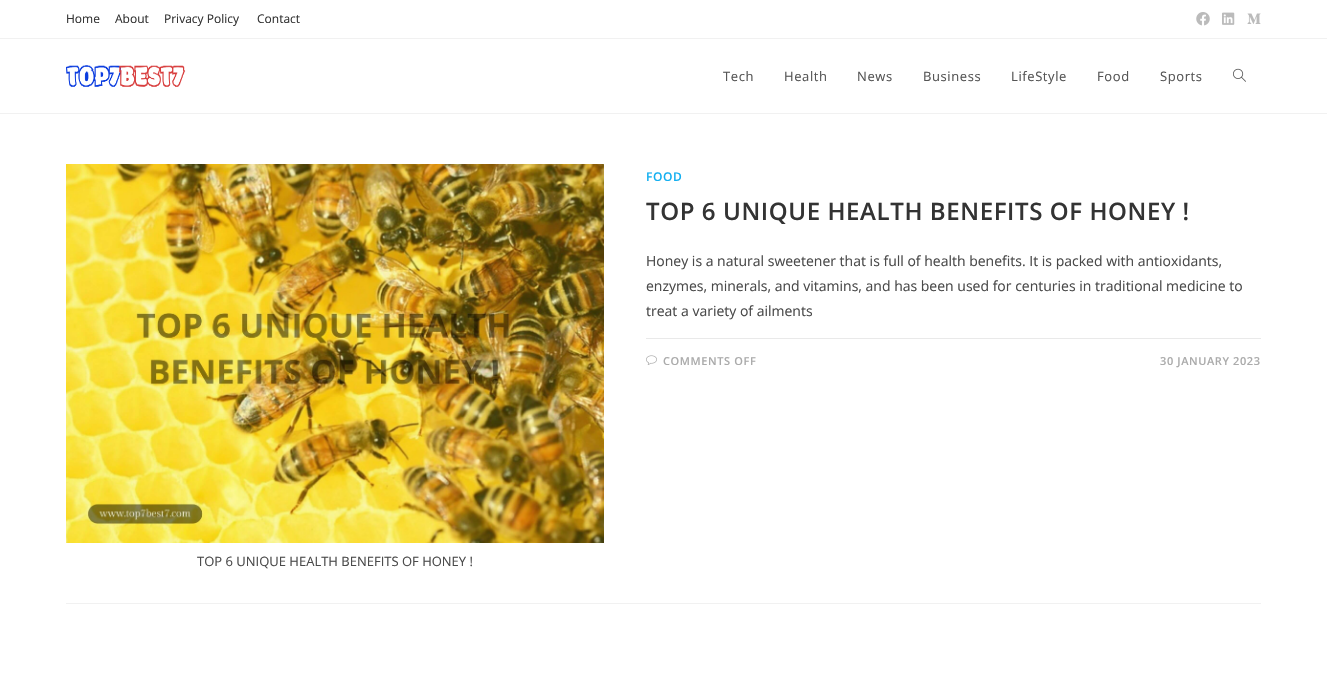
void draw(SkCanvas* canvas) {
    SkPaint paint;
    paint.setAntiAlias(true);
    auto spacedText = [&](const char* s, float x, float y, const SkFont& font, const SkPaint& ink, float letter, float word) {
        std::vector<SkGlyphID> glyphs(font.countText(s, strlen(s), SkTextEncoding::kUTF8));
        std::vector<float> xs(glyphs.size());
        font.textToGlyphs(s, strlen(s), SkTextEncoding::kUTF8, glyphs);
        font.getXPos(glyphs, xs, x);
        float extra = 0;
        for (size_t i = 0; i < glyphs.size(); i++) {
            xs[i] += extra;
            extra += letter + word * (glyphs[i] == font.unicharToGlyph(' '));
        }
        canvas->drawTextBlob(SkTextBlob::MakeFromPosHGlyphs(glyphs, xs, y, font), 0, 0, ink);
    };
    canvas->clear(0xFFFFFFFF);
    paint.setColor(0xFFF1F1F1);
    canvas->drawRect(SkRect::MakeXYWH(0, 38, 1327, 1), paint);
    SkFont font1(fontMgr->matchFamilyStyle("Open Sans", SkFontStyle::Normal()), 12);
    font1.setSubpixel(true);
    paint.setColor(0xFF333333);
    canvas->drawString("Home", 66, 23, font1, paint);
    canvas->drawString("About", 115, 23, font1, paint);
    canvas->drawString("Privacy Policy", 164, 23, font1, paint);
    canvas->drawString("Contact", 257, 23, font1, paint);
    canvas->drawImageRect(SkImages::DeferredFromEncodedData(SkData::MakeFromFileName("img1.png")), SkRect::MakeXYWH(1196, 12, 14, 14), SkSamplingOptions());
    canvas->drawImageRect(SkImages::DeferredFromEncodedData(SkData::MakeFromFileName("img2.png")), SkRect::MakeXYWH(1222, 12, 13, 13), SkSamplingOptions());
    canvas->drawImageRect(SkImages::DeferredFromEncodedData(SkData::MakeFromFileName("img3.png")), SkRect::MakeXYWH(1247, 13, 14, 11), SkSamplingOptions());
    paint.setColor(0xFFF1F1F1);
    canvas->drawRect(SkRect::MakeXYWH(0, 113, 1327, 1), paint);
    canvas->drawImageRect(SkImages::DeferredFromEncodedData(SkData::MakeFromFileName("img4.png")), SkRect::MakeXYWH(66, 65, 120, 22), SkSamplingOptions());
    SkFont font2(fontMgr->matchFamilyStyle("Open Sans", SkFontStyle::Normal()), 13);
    font2.setSubpixel(true);
    paint.setColor(0xFF555555);
    spacedText("Tech", 723, 81, font2, paint, 0.6f, 0);
    spacedText("Health", 784, 81, font2, paint, 0.6f, 0);
    spacedText("News", 857, 81, font2, paint, 0.6f, 0);
    spacedText("Business", 923, 81, font2, paint, 0.6f, 0);
    spacedText("LifeStyle", 1011, 81, font2, paint, 0.6f, 0);
    spacedText("Food", 1097, 81, font2, paint, 0.6f, 0);
    spacedText("Sports", 1160, 81, font2, paint, 0.6f, 0);
    canvas->drawImageRect(SkImages::DeferredFromEncodedData(SkData::MakeFromFileName("img5.png")), SkRect::MakeXYWH(1233, 68, 13, 14), SkSamplingOptions());
    paint.setColor(0xFFF1F1F1);
    canvas->drawRect(SkRect::MakeXYWH(66, 603, 1195, 1), paint);
    SkFont font3(fontMgr->matchFamilyStyle("Open Sans", SkFontStyle(600, SkFontStyle::kNormal_Width, SkFontStyle::kUpright_Slant)), 12);
    font3.setSubpixel(true);
    paint.setColor(0xFF13AFF0);
    spacedText("FOOD", 646, 181, font3, paint, 0.6f, 0);
    SkFont font4(fontMgr->matchFamilyStyle("Open Sans", SkFontStyle(600, SkFontStyle::kNormal_Width, SkFontStyle::kUpright_Slant)), 24);
    font4.setSubpixel(true);
    paint.setColor(0xFF333333);
    spacedText("TOP 6 UNIQUE HEALTH BENEFITS OF HONEY !", 646, 220, font4, paint, 0.6f, 0);
    SkFont font5(fontMgr->matchFamilyStyle("Open Sans", SkFontStyle::Normal()), 14);
    font5.setSubpixel(true);
    paint.setColor(0xFF4A4A4A);
    canvas->drawString("Honey is a natural sweetener that is full of health benefits. It is packed with antioxidants,", 646, 266, font5, paint);
    canvas->drawString("enzymes, minerals, and vitamins, and has been used for centuries in traditional medicine to", 646, 291, font5, paint);
    canvas->drawString("treat a variety of ailments", 646, 316, font5, paint);
    paint.setColor(0xFFE9E9E9);
    canvas->drawRect(SkRect::MakeXYWH(646, 338, 615, 1), paint);
    canvas->drawImageRect(SkImages::DeferredFromEncodedData(SkData::MakeFromFileName("img6.png")), SkRect::MakeXYWH(646, 355, 11, 10), SkSamplingOptions());
    SkFont font6(fontMgr->matchFamilyStyle("Open Sans", SkFontStyle(600, SkFontStyle::kNormal_Width, SkFontStyle::kUpright_Slant)), 11);
    font6.setSubpixel(true);
    paint.setColor(0xFFABABAB);
    spacedText("COMMENTS OFF", 663, 365, font6, paint, 0.6f, 0);
    spacedText("30 JANUARY 2023", 1160, 365, font6, paint, 0.6f, 0);
    canvas->drawImageRect(SkImages::DeferredFromEncodedData(SkData::MakeFromFileName("img7.png")), SkRect::MakeXYWH(66, 164, 538, 379), SkSamplingOptions());
    paint.setColor(0xFF4A4A4A);
    canvas->drawString("TOP 6 UNIQUE HEALTH BENEFITS OF HONEY !", 197, 566, font2, paint);
}
